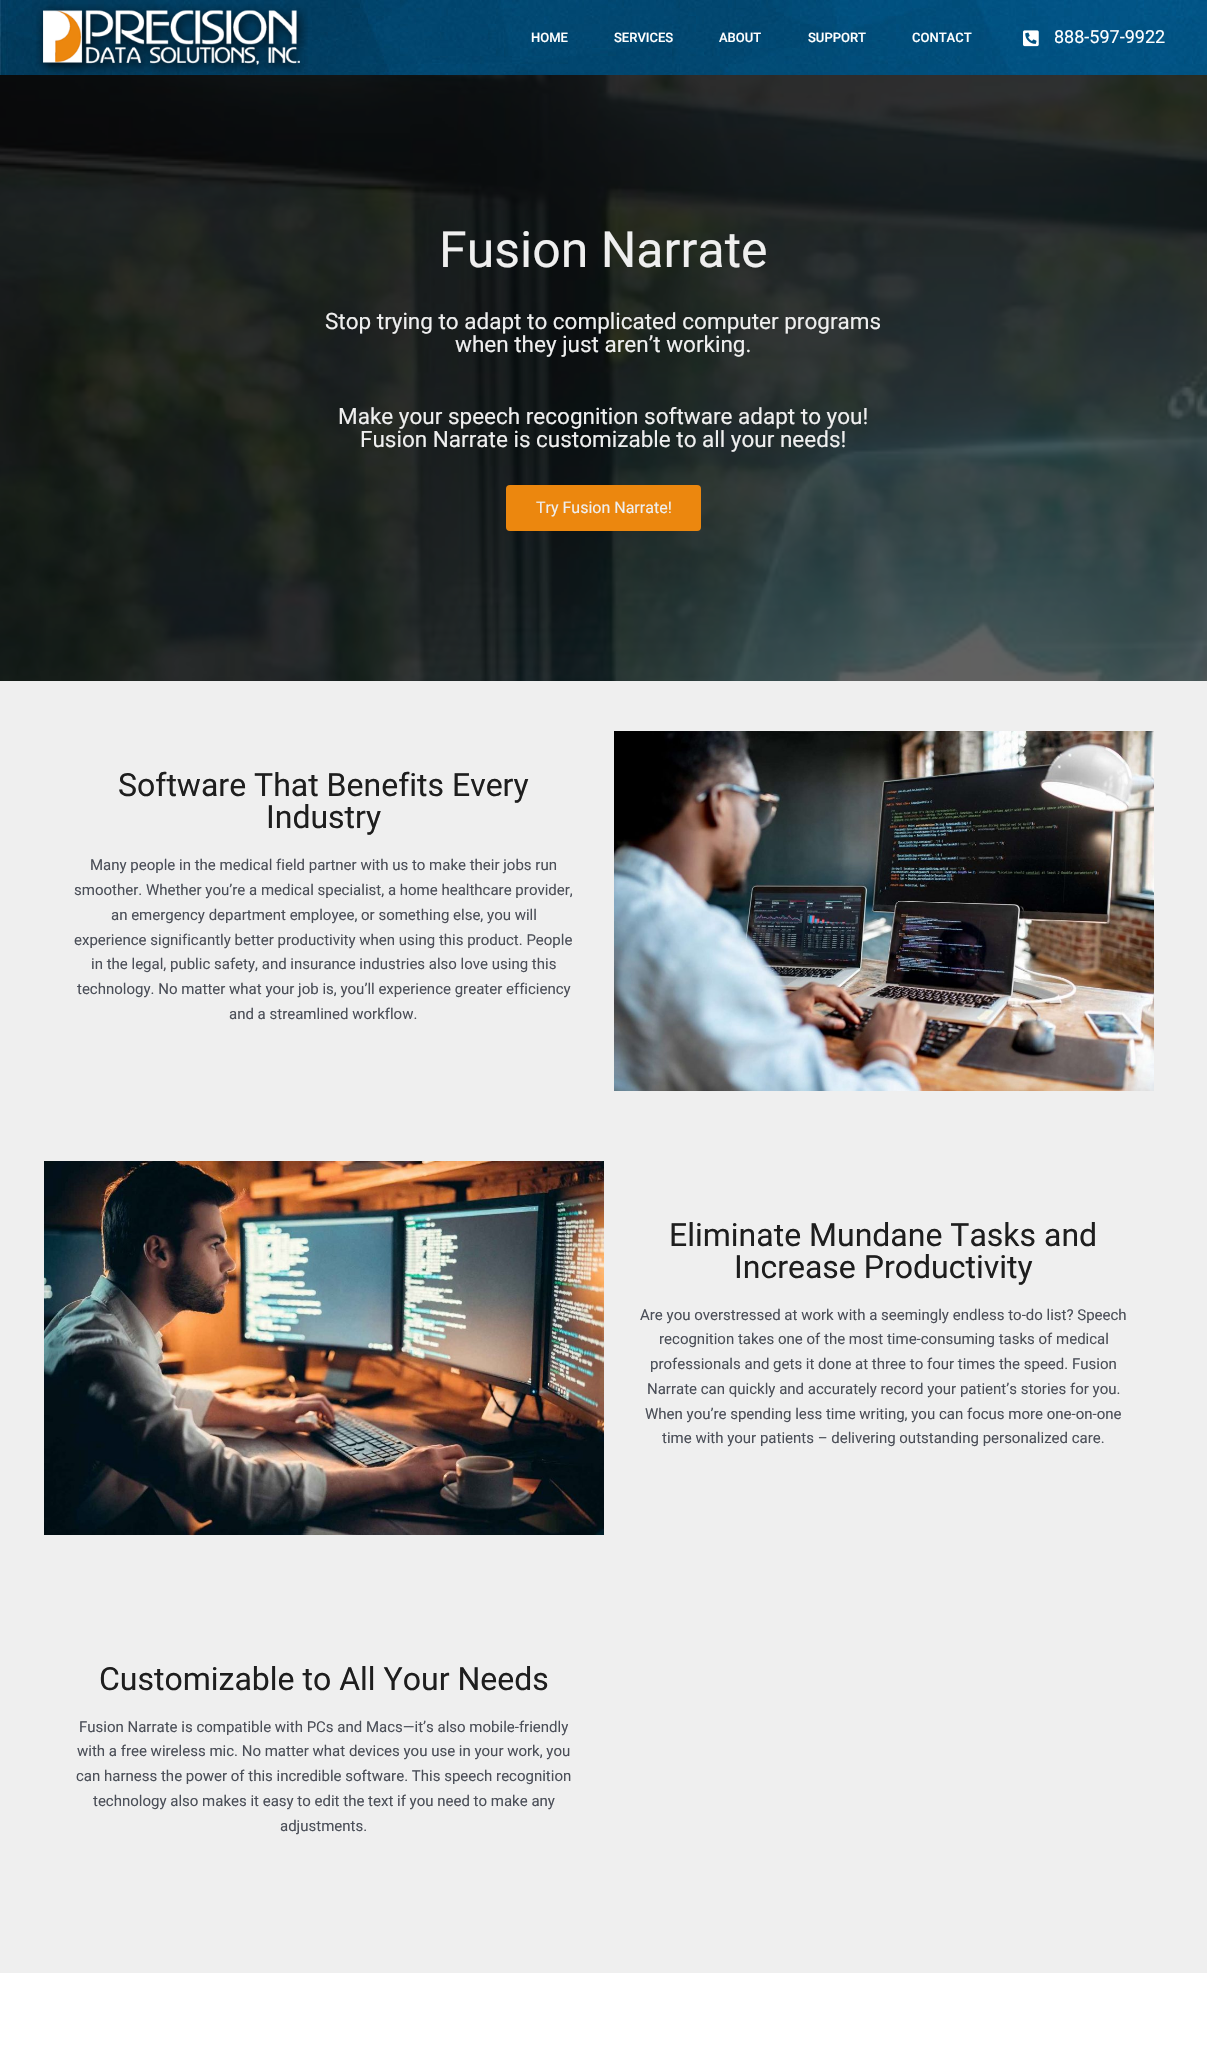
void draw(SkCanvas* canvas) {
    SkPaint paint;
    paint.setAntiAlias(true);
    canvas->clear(0xFFFFFFFF);
    canvas->drawImageRect(SkImages::DeferredFromEncodedData(SkData::MakeFromFileName("img1.png")), SkRect::MakeXYWH(0, 0, 1207, 75), SkSamplingOptions());
    canvas->drawImageRect(SkImages::DeferredFromEncodedData(SkData::MakeFromFileName("img2.png")), SkRect::MakeXYWH(36, 4, 272, 70), SkSamplingOptions());
    SkFont font1(fontMgr->matchFamilyStyle("Roboto", SkFontStyle(500, SkFontStyle::kNormal_Width, SkFontStyle::kUpright_Slant)), 13);
    font1.setSubpixel(true);
    paint.setColor(0xFFFFFFFF);
    canvas->drawString("HOME", 531, 42, font1, paint);
    canvas->drawString("SERVICES", 614, 42, font1, paint);
    canvas->drawString("ABOUT", 719, 42, font1, paint);
    canvas->drawString("SUPPORT", 808, 42, font1, paint);
    canvas->drawString("CONTACT", 912, 42, font1, paint);
    canvas->drawImageRect(SkImages::DeferredFromEncodedData(SkData::MakeFromFileName("img3.png")), SkRect::MakeXYWH(1023, 30, 16, 17), SkSamplingOptions());
    SkFont font2(fontMgr->matchFamilyStyle("Roboto", SkFontStyle::Normal()), 18);
    font2.setSubpixel(true);
    canvas->drawString("888-597-9922", 1054, 43, font2, paint);
    canvas->drawImageRect(SkImages::DeferredFromEncodedData(SkData::MakeFromFileName("img4.png")), SkRect::MakeXYWH(0, 75, 1207, 606), SkSamplingOptions());
    SkFont font3(fontMgr->matchFamilyStyle("Roboto", SkFontStyle::Normal()), 50);
    font3.setSubpixel(true);
    paint.setColor(0xFFEFEFEF);
    canvas->drawString("Fusion Narrate", 439, 267, font3, paint);
    SkFont font4(fontMgr->matchFamilyStyle("Roboto", SkFontStyle::Normal()), 22.5f);
    font4.setSubpixel(true);
    canvas->drawString("Stop trying to adapt to complicated computer programs", 325, 329, font4, paint);
    canvas->drawString("when they just aren’t working.", 455, 352, font4, paint);
    canvas->drawString("Make your speech recognition software adapt to you!", 338, 424, font4, paint);
    canvas->drawString("Fusion Narrate is customizable to all your needs!", 360, 447, font4, paint);
    paint.setColor(0xFFEC870E);
    canvas->drawRoundRect(SkRect::MakeXYWH(506, 485, 195, 46), 4, 4, paint);
    SkFont font5(fontMgr->matchFamilyStyle("Roboto", SkFontStyle::Normal()), 16);
    font5.setSubpixel(true);
    paint.setColor(0xFFEFEFEF);
    canvas->drawString("Try Fusion Narrate!", 536, 513, font5, paint);
    canvas->drawRect(SkRect::MakeXYWH(0, 681, 1207, 1292), paint);
    SkFont font6(fontMgr->matchFamilyStyle("Roboto", SkFontStyle::Normal()), 32);
    font6.setSubpixel(true);
    paint.setColor(0xFF1E1E1E);
    canvas->drawString("Software That Benefits Every", 118, 796, font6, paint);
    canvas->drawString("Industry", 266, 828, font6, paint);
    SkFont font7(fontMgr->matchFamilyStyle("Roboto", SkFontStyle::Normal()), 15);
    font7.setSubpixel(true);
    paint.setColor(0xFF4B4F58);
    canvas->drawString("Many people in the medical field partner with us to make their jobs run", 90, 870, font7, paint);
    canvas->drawString("smoother. Whether you’re a medical specialist, a home healthcare provider,", 74, 895, font7, paint);
    canvas->drawString("an emergency department employee, or something else, you will", 111, 920, font7, paint);
    canvas->drawString("experience significantly better productivity when using this product. People", 74, 945, font7, paint);
    canvas->drawString("in the legal, public safety, and insurance industries also love using this", 91, 969, font7, paint);
    canvas->drawString("technology. No matter what your job is, you’ll experience greater efficiency", 77, 994, font7, paint);
    canvas->drawString("and a streamlined workflow.", 229, 1019, font7, paint);
    canvas->drawImageRect(SkImages::DeferredFromEncodedData(SkData::MakeFromFileName("img5.png")), SkRect::MakeXYWH(614, 731, 540, 360), SkSamplingOptions());
    canvas->drawImageRect(SkImages::DeferredFromEncodedData(SkData::MakeFromFileName("img6.png")), SkRect::MakeXYWH(44, 1161, 560, 374), SkSamplingOptions());
    paint.setColor(0xFF1E1E1E);
    canvas->drawString("Eliminate Mundane Tasks and", 669, 1246, font6, paint);
    canvas->drawString("Increase Productivity", 734, 1278, font6, paint);
    paint.setColor(0xFF4B4F58);
    canvas->drawString("Are you overstressed at work with a seemingly endless to-do list? Speech", 640, 1320, font7, paint);
    canvas->drawString("recognition takes one of the most time-consuming tasks of medical", 659, 1344, font7, paint);
    canvas->drawString("professionals and gets it done at three to four times the speed. Fusion", 650, 1369, font7, paint);
    canvas->drawString("Narrate can quickly and accurately record your patient’s stories for you.", 647, 1394, font7, paint);
    canvas->drawString("When you’re spending less time writing, you can focus more one-on-one", 645, 1419, font7, paint);
    canvas->drawString("time with your patients – delivering outstanding personalized care.", 662, 1443, font7, paint);
    paint.setColor(0xFF1E1E1E);
    canvas->drawString("Customizable to All Your Needs", 99, 1690, font6, paint);
    paint.setColor(0xFF4B4F58);
    canvas->drawString("Fusion Narrate is compatible with PCs and Macs—it’s also mobile-friendly", 79, 1732, font7, paint);
    canvas->drawString("with a free wireless mic. No matter what devices you use in your work, you", 77, 1756, font7, paint);
    canvas->drawString("can harness the power of this incredible software. This speech recognition", 76, 1781, font7, paint);
    canvas->drawString("technology also makes it easy to edit the text if you need to make any", 93, 1806, font7, paint);
    canvas->drawString("adjustments.", 280, 1831, font7, paint);
}
